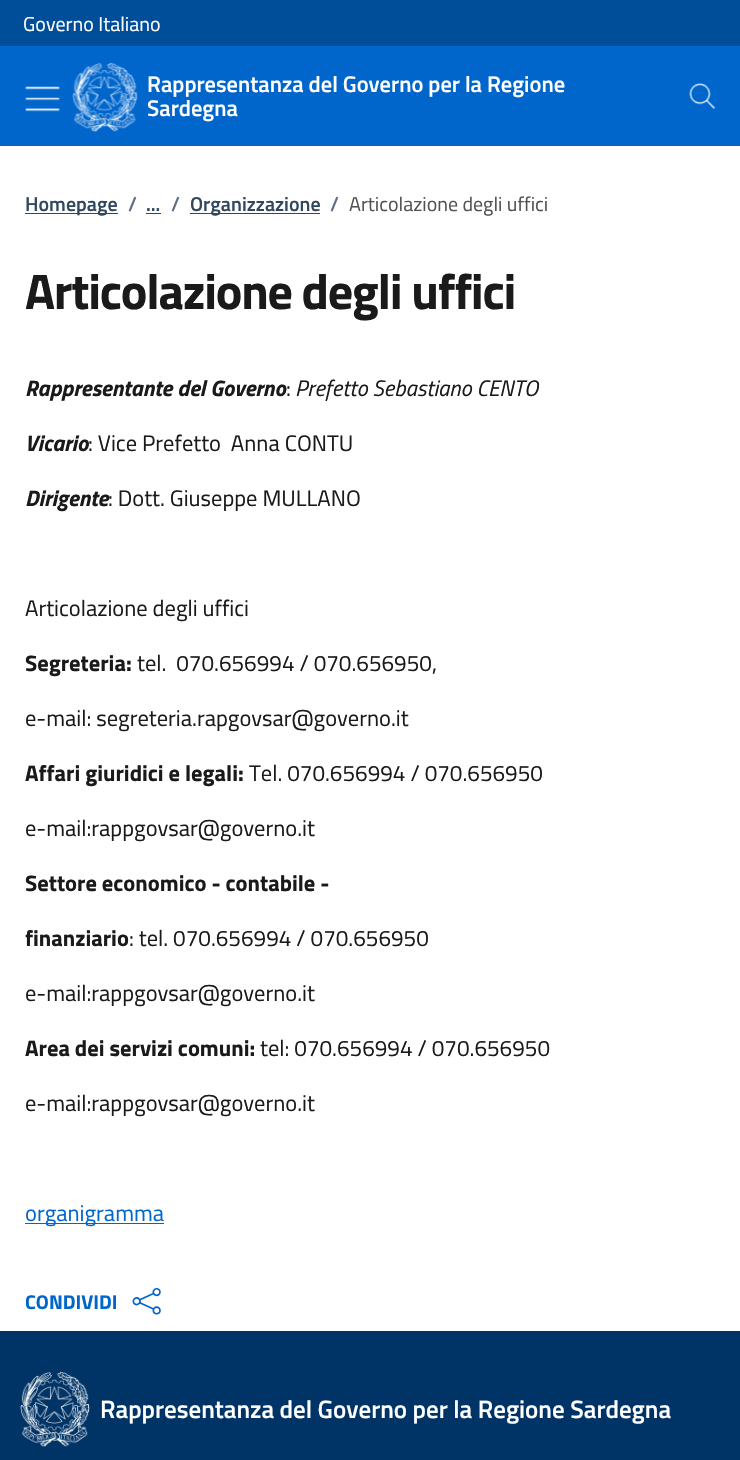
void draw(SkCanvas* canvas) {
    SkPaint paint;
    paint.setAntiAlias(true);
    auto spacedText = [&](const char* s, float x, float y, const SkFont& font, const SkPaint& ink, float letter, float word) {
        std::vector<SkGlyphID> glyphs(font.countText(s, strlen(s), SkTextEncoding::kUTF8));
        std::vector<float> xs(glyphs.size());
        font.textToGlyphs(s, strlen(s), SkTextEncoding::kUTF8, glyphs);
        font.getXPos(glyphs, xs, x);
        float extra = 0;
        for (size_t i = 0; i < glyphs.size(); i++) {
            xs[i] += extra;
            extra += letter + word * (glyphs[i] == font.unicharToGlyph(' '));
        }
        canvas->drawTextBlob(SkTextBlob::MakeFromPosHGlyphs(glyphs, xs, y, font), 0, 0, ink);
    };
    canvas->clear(0xFFFFFFFF);
    paint.setColor(0xFF004D99);
    canvas->drawRect(SkRect::MakeXYWH(0, 0, 740, 46), paint);
    SkFont font1(fontMgr->matchFamilyStyle("Titillium Web", SkFontStyle::Normal()), 20);
    font1.setSubpixel(true);
    paint.setColor(0xFFFFFFFF);
    canvas->drawString("Governo Italiano", 23, 31, font1, paint);
    paint.setColor(0xFF0066CC);
    canvas->drawRect(SkRect::MakeXYWH(0, 46, 740, 100), paint);
    canvas->drawImageRect(SkImages::DeferredFromEncodedData(SkData::MakeFromFileName("img1.png")), SkRect::MakeXYWH(25, 86, 35, 26), SkSamplingOptions());
    canvas->drawImageRect(SkImages::DeferredFromEncodedData(SkData::MakeFromFileName("img2.png")), SkRect::MakeXYWH(72, 62, 66, 70), SkSamplingOptions());
    SkFont font2(fontMgr->matchFamilyStyle("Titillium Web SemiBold", SkFontStyle(600, SkFontStyle::kNormal_Width, SkFontStyle::kUpright_Slant)), 22.5f);
    font2.setSubpixel(true);
    paint.setColor(0xFFFFFFFF);
    canvas->drawString("Rappresentanza del Governo per la Regione", 147, 92, font2, paint);
    canvas->drawString("Sardegna", 147, 116, font2, paint);
    canvas->drawImageRect(SkImages::DeferredFromEncodedData(SkData::MakeFromFileName("img3.png")), SkRect::MakeXYWH(689, 83, 27, 27), SkSamplingOptions());
    paint.setColor(0xFF30475F);
    canvas->drawRect(SkRect::MakeXYWH(25, 213, 93, 1), paint);
    SkFont font3(fontMgr->matchFamilyStyle("Titillium Web SemiBold", SkFontStyle(600, SkFontStyle::kNormal_Width, SkFontStyle::kUpright_Slant)), 20);
    font3.setSubpixel(true);
    canvas->drawString("Homepage", 25, 211, font3, paint);
    paint.setColor(0xFF5D7083);
    canvas->drawString("/", 128, 211, font3, paint);
    paint.setColor(0xFF30475F);
    canvas->drawString("...", 146, 211, font3, paint);
    canvas->drawRect(SkRect::MakeXYWH(146, 213, 15, 1), paint);
    paint.setColor(0xFF5D7083);
    canvas->drawString("/", 171, 211, font3, paint);
    paint.setColor(0xFF30475F);
    canvas->drawRect(SkRect::MakeXYWH(190, 213, 130, 1), paint);
    canvas->drawString("Organizzazione", 190, 211, font3, paint);
    paint.setColor(0xFF5D7083);
    canvas->drawString("/", 330, 211, font3, paint);
    paint.setColor(0xFF525252);
    canvas->drawString("Articolazione degli uffici", 349, 211, font1, paint);
    SkFont font4(fontMgr->matchFamilyStyle("Titillium Web", SkFontStyle::Bold()), 50);
    font4.setSubpixel(true);
    paint.setColor(0xFF1A1A1A);
    spacedText("Articolazione degli uffici", 25, 309, font4, paint, -1.25f, 0);
    SkFont font5(fontMgr->matchFamilyStyle("Titillium Web", SkFontStyle::BoldItalic()), 22.5f);
    font5.setSubpixel(true);
    canvas->drawString("Rappresentante del Governo", 25, 396, font5, paint);
    SkFont font6(fontMgr->matchFamilyStyle("Titillium Web", SkFontStyle::Normal()), 22.5f);
    font6.setSubpixel(true);
    canvas->drawString(":", 286, 396, font6, paint);
    SkFont font7(fontMgr->matchFamilyStyle("Titillium Web", SkFontStyle::Italic()), 22.5f);
    font7.setSubpixel(true);
    canvas->drawString("Prefetto Sebastiano CENTO", 295, 396, font7, paint);
    canvas->drawString("Vicario", 25, 451, font5, paint);
    canvas->drawString(": Vice Prefetto  Anna CONTU", 88, 451, font6, paint);
    canvas->drawString("Dirigente", 25, 506, font5, paint);
    canvas->drawString(": Dott. Giuseppe MULLANO", 108, 506, font6, paint);
    canvas->drawString("Articolazione degli uffici", 25, 616, font6, paint);
    SkFont font8(fontMgr->matchFamilyStyle("Titillium Web", SkFontStyle::Bold()), 22.5f);
    font8.setSubpixel(true);
    canvas->drawString("Segreteria:", 25, 671, font8, paint);
    canvas->drawString("tel.  070.656994 / 070.656950,", 137, 671, font6, paint);
    canvas->drawString("e-mail: segreteria.rapgovsar@governo.it", 25, 726, font6, paint);
    canvas->drawString("Affari giuridici e legali:", 25, 781, font8, paint);
    canvas->drawString("Tel. 070.656994 / 070.656950", 249, 781, font6, paint);
    canvas->drawString("e-mail:rappgovsar@governo.it", 25, 836, font6, paint);
    canvas->drawString("Settore economico - contabile -", 25, 891, font8, paint);
    canvas->drawString("finanziario", 25, 946, font8, paint);
    canvas->drawString(": tel. 070.656994 / 070.656950", 129, 946, font6, paint);
    canvas->drawString("e-mail:rappgovsar@governo.it", 25, 1001, font6, paint);
    canvas->drawString("Area dei servizi comuni:", 25, 1056, font8, paint);
    canvas->drawString("tel: 070.656994 / 070.656950", 260, 1056, font6, paint);
    canvas->drawString("e-mail:rappgovsar@governo.it", 25, 1111, font6, paint);
    paint.setColor(0xFF0066CC);
    canvas->drawRect(SkRect::MakeXYWH(25, 1223, 139, 1), paint);
    canvas->drawString("organigramma", 25, 1221, font6, paint);
    SkFont font9(fontMgr->matchFamilyStyle("Titillium Web", SkFontStyle::Bold()), 20);
    font9.setSubpixel(true);
    canvas->drawString("CONDIVIDI", 25, 1309, font9, paint);
    canvas->drawImageRect(SkImages::DeferredFromEncodedData(SkData::MakeFromFileName("img4.png")), SkRect::MakeXYWH(132, 1288, 29, 27), SkSamplingOptions());
    paint.setColor(0xFF003366);
    canvas->drawRect(SkRect::MakeXYWH(0, 1331, 740, 129), paint);
    canvas->drawImageRect(SkImages::DeferredFromEncodedData(SkData::MakeFromFileName("img5.png")), SkRect::MakeXYWH(20, 1371, 70, 76), SkSamplingOptions());
    SkFont font10(fontMgr->matchFamilyStyle("Titillium Web SemiBold", SkFontStyle(600, SkFontStyle::kNormal_Width, SkFontStyle::kUpright_Slant)), 25);
    font10.setSubpixel(true);
    paint.setColor(0xFFFFFFFF);
    canvas->drawString("Rappresentanza del Governo per la Regione Sardegna", 100, 1418, font10, paint);
}
